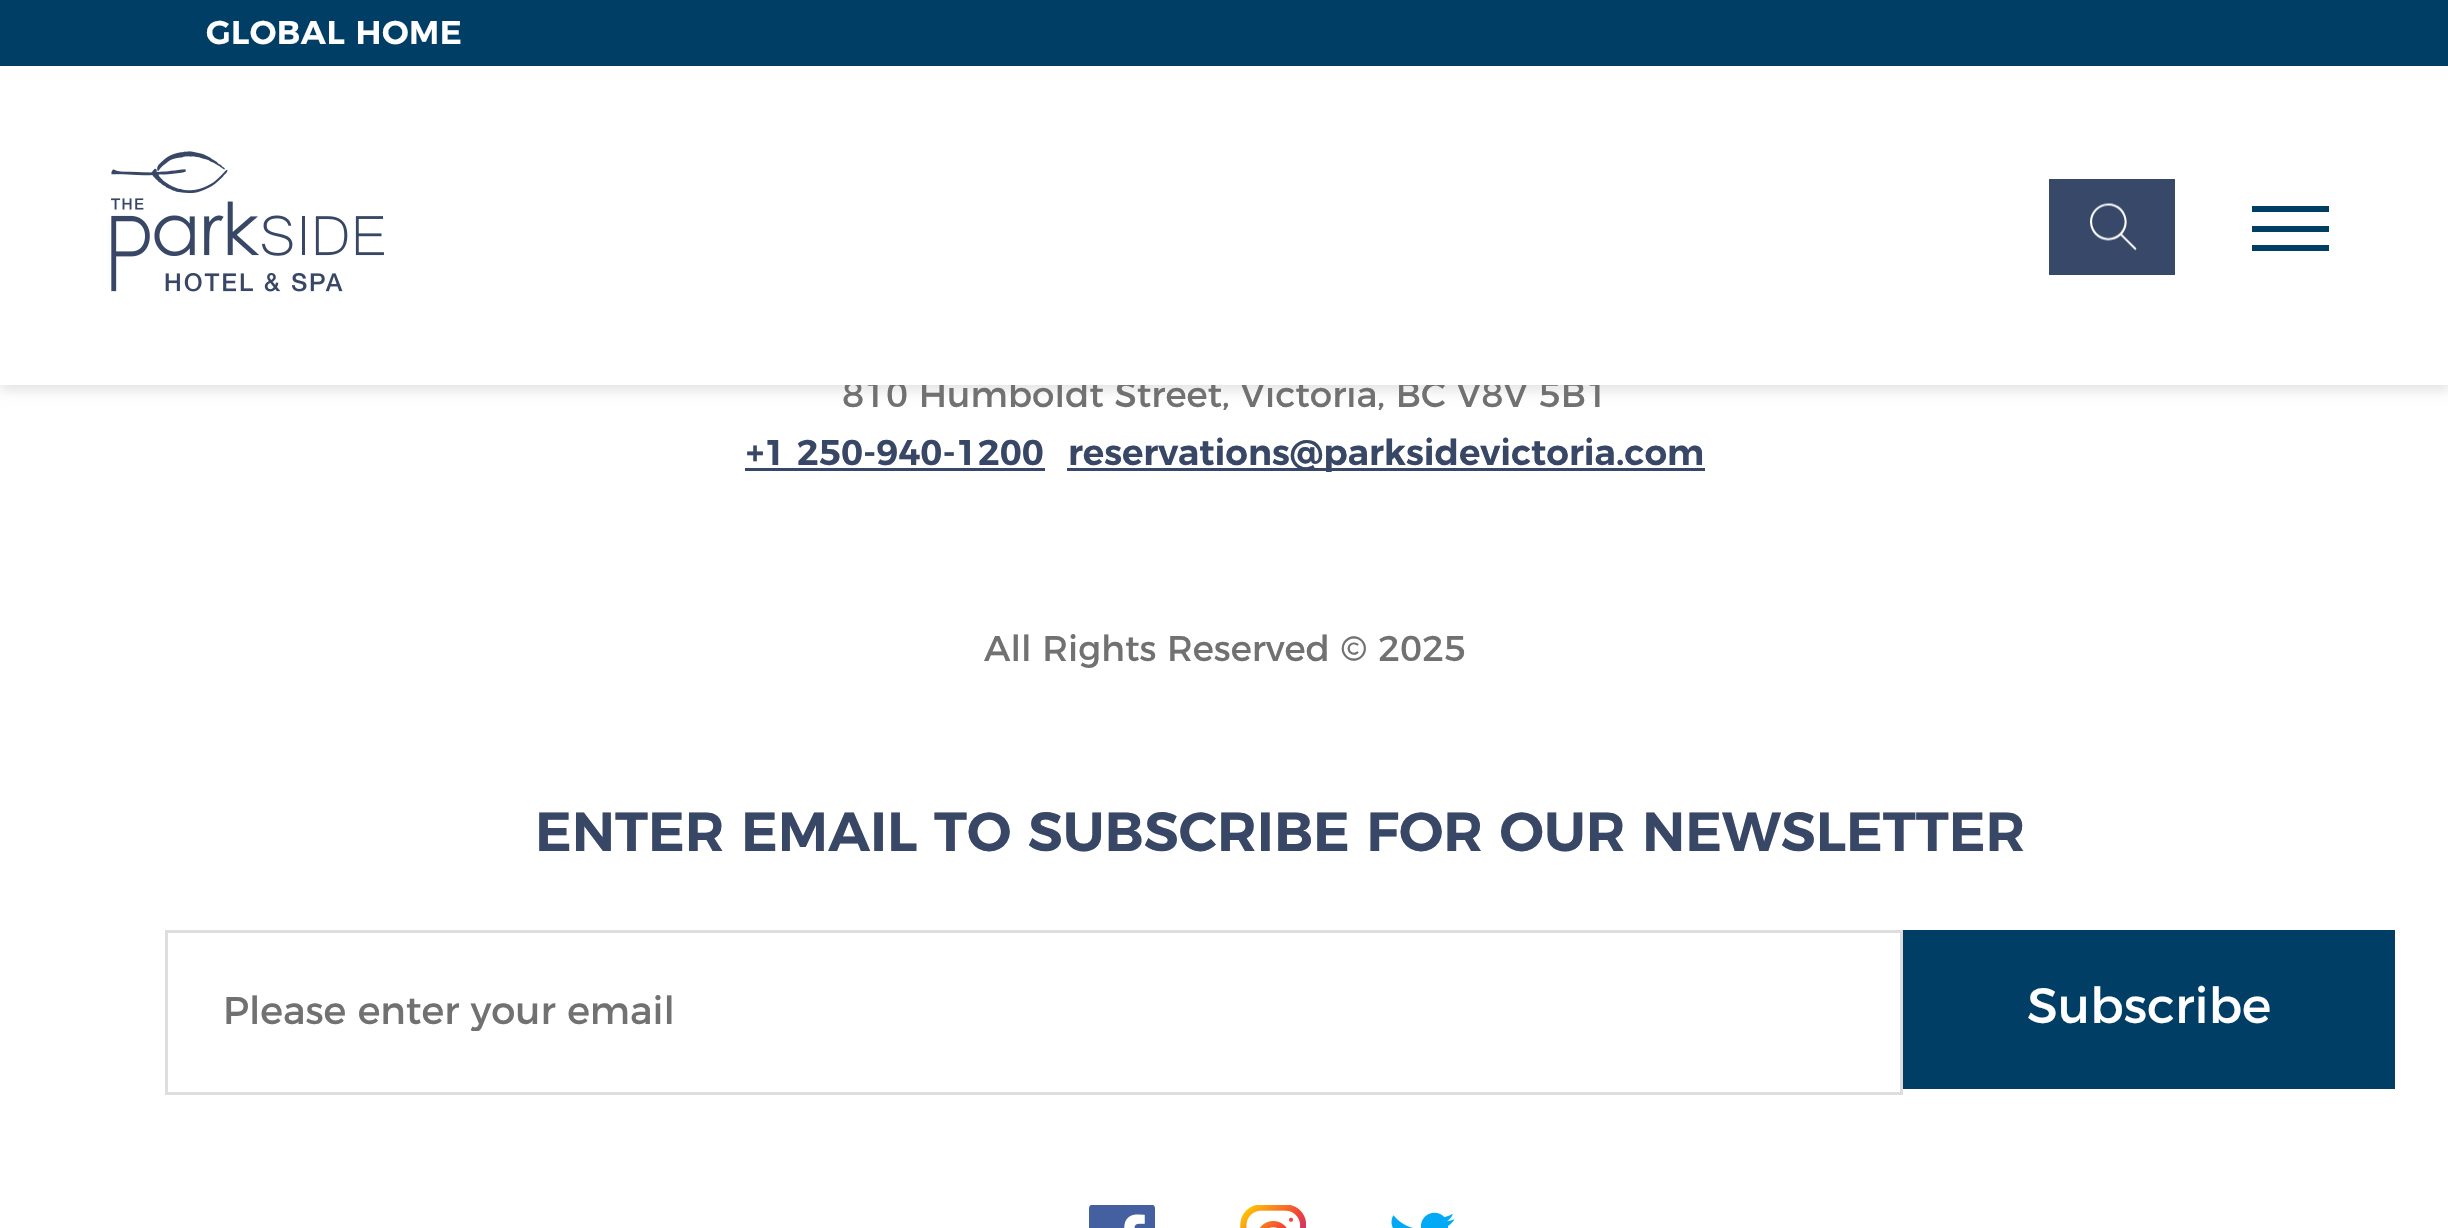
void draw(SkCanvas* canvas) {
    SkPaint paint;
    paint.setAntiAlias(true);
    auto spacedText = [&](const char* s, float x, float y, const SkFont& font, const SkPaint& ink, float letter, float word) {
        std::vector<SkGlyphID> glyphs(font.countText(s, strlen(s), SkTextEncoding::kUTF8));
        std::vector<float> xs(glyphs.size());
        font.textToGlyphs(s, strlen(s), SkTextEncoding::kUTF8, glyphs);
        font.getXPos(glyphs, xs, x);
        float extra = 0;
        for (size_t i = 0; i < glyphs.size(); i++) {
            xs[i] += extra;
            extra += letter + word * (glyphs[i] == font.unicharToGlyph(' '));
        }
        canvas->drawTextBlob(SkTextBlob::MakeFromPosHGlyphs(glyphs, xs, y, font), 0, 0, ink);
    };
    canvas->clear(0xFFFFFFFF);
    paint.setColor(0x1A000000);
    paint.setMaskFilter(SkMaskFilter::MakeBlur(kNormal_SkBlurStyle, 5.5f));
    canvas->drawRect(SkRect::MakeXYWH(0, 6, 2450, 385), paint);
    paint.setMaskFilter(nullptr);
    SkFont font1(fontMgr->matchFamilyStyle("Montserrat", SkFontStyle::Normal()), 35.75f);
    font1.setSubpixel(true);
    paint.setColor(0xFF717171);
    canvas->drawString("810 Humboldt Street, Victoria, BC V8V 5B1", 842, 407, font1, paint);
    paint.setColor(0xFFFFFFFF);
    canvas->drawRect(SkRect::MakeXYWH(0, 66, 2448, 319), paint);
    paint.setColor(0xFF003E66);
    canvas->drawRect(SkRect::MakeXYWH(0, 0, 2448, 66), paint);
    SkFont font2(fontMgr->matchFamilyStyle("Montserrat", SkFontStyle(600, SkFontStyle::kNormal_Width, SkFontStyle::kUpright_Slant)), 33);
    font2.setSubpixel(true);
    paint.setColor(0xFFFFFFFF);
    spacedText("GLOBAL HOME", 206, 44, font2, paint, 0.5f, 0);
    canvas->drawImageRect(SkImages::DeferredFromEncodedData(SkData::MakeFromFileName("img1.png")), SkRect::MakeXYWH(111, 151, 273, 141), SkSamplingOptions());
    paint.setColor(0xFF384868);
    canvas->drawRect(SkRect::MakeXYWH(2049, 179, 126, 96), paint);
    canvas->drawImageRect(SkImages::DeferredFromEncodedData(SkData::MakeFromFileName("img2.png")), SkRect::MakeXYWH(2090, 203, 47, 48), SkSamplingOptions());
    paint.setColor(0xFF003E66);
    canvas->drawRect(SkRect::MakeXYWH(2252, 206, 77, 6), paint);
    canvas->drawRect(SkRect::MakeXYWH(2252, 226, 77, 6), paint);
    canvas->drawRect(SkRect::MakeXYWH(2252, 245, 77, 6), paint);
    SkFont font3(fontMgr->matchFamilyStyle("Montserrat", SkFontStyle(600, SkFontStyle::kNormal_Width, SkFontStyle::kUpright_Slant)), 35.75f);
    font3.setSubpixel(true);
    paint.setColor(0xFF384766);
    canvas->drawString("+1 250-940-1200", 746, 465, font3, paint);
    canvas->drawRect(SkRect::MakeXYWH(745, 468, 300, 3), paint);
    canvas->drawRect(SkRect::MakeXYWH(1067, 468, 638, 3), paint);
    canvas->drawString("reservations@parksidevictoria.com", 1068, 465, font3, paint);
    paint.setColor(0xFF717171);
    canvas->drawString("All Rights Reserved © 2025", 984, 661, font1, paint);
    SkFont font4(fontMgr->matchFamilyStyle("Montserrat", SkFontStyle(600, SkFontStyle::kNormal_Width, SkFontStyle::kUpright_Slant)), 55);
    font4.setSubpixel(true);
    paint.setColor(0xFF384766);
    canvas->drawString("ENTER EMAIL TO SUBSCRIBE FOR OUR NEWSLETTER", 535, 851, font4, paint);
    paint.setStyle(SkPaint::kStroke_Style);
    paint.setStrokeWidth(3);
    paint.setColor(0xFFDEDEDE);
    canvas->drawRect(SkRect::MakeXYWH(166.5f, 931.5f, 1735, 162), paint);
    canvas->save();
    canvas->clipRect(SkRect::MakeXYWH(223, 993, 1622, 38));
    SkFont font5(fontMgr->matchFamilyStyle("Montserrat", SkFontStyle::Normal()), 38.5f);
    font5.setSubpixel(true);
    paint.setStyle(SkPaint::kFill_Style);
    paint.setColor(0xFF717171);
    canvas->drawString("Please enter your email", 223, 1024, font5, paint);
    canvas->restore();
    paint.setColor(0xFF003E66);
    canvas->drawRect(SkRect::MakeXYWH(1903, 930, 492, 159), paint);
    SkFont font6(fontMgr->matchFamilyStyle("Montserrat", SkFontStyle::Normal()), 49.5f);
    font6.setSubpixel(true);
    paint.setColor(0xFFFFFFFF);
    canvas->drawString("Subscribe", 2027, 1023, font6, paint);
    canvas->drawImageRect(SkImages::DeferredFromEncodedData(SkData::MakeFromFileName("img3.png")), SkRect::MakeXYWH(1089, 1205, 66, 23), SkSamplingOptions());
    canvas->drawImageRect(SkImages::DeferredFromEncodedData(SkData::MakeFromFileName("img4.png")), SkRect::MakeXYWH(1240, 1205, 66, 23), SkSamplingOptions());
    canvas->drawImageRect(SkImages::DeferredFromEncodedData(SkData::MakeFromFileName("img5.png")), SkRect::MakeXYWH(1391, 1212, 64, 16), SkSamplingOptions());
}
